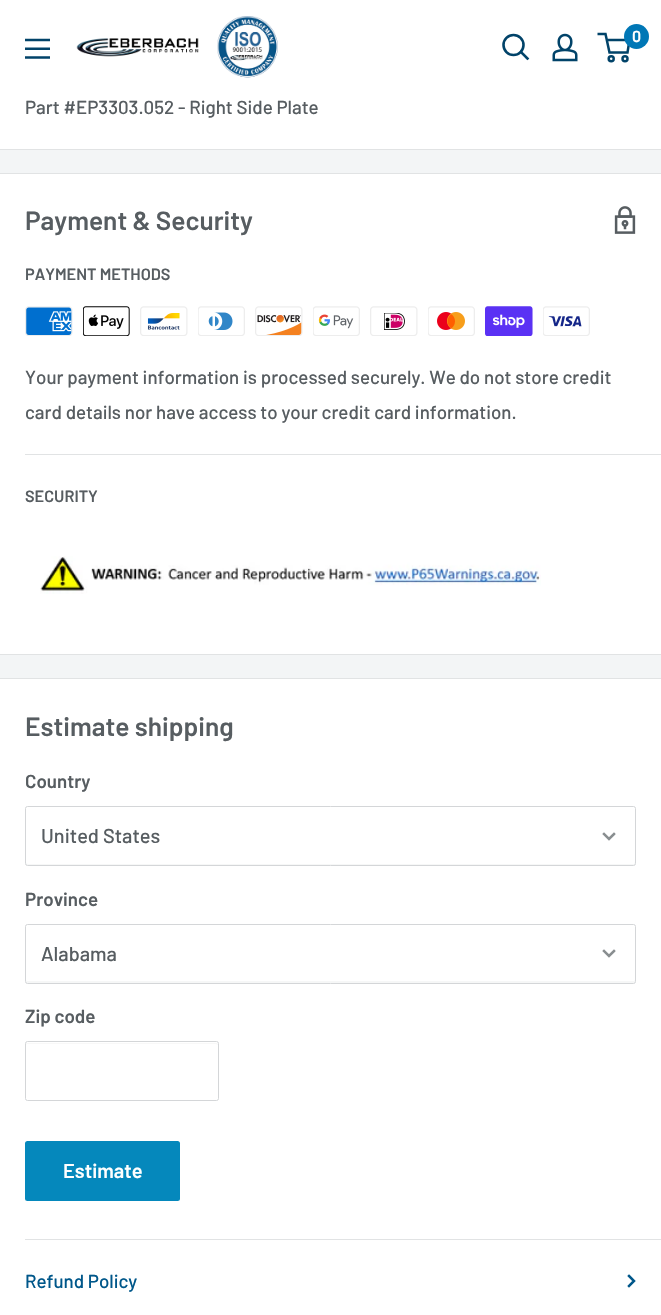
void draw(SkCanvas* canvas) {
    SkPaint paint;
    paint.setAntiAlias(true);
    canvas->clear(0xFFF3F5F6);
    paint.setColor(0xFFFFFFFF);
    canvas->drawRect(SkRect::MakeXYWH(0, 0, 661, 149), paint);
    canvas->drawImageRect(SkImages::DeferredFromEncodedData(SkData::MakeFromFileName("img1.png")), SkRect::MakeXYWH(217, 16, 61, 62), SkSamplingOptions());
    paint.setStyle(SkPaint::kStroke_Style);
    paint.setStrokeWidth(2.6f);
    paint.setStrokeCap(SkPaint::kSquare_Cap);
    paint.setColor(0xFF014369);
    canvas->drawPath(SkPathBuilder().moveTo(527.5f, 58.5f).lineTo(521, 52).detach(), paint);
    paint.setStrokeCap(SkPaint::kButt_Cap);
    canvas->drawCircle(513.5f, 45, 10, paint);
    canvas->drawImageRect(SkImages::DeferredFromEncodedData(SkData::MakeFromFileName("img2.png")), SkRect::MakeXYWH(552, 33, 26, 29), SkSamplingOptions());
    paint.setStrokeWidth(2.5f);
    canvas->drawCircle(611.2f, 58.8f, 2.5f, paint);
    canvas->drawCircle(625, 58.8f, 2.5f, paint);
    canvas->drawPath(SkPathBuilder().moveTo(606.5f, 40).lineTo(629.5f, 40).lineTo(627.5f, 52.5f).lineTo(609.5f, 52.5f).lineTo(605.5f, 34).lineTo(597.5f, 34).detach(), paint);
    paint.setStyle(SkPaint::kFill_Style);
    paint.setColor(0xFF0077B6);
    canvas->drawCircle(636.5f, 36.5f, 12.5f, paint);
    SkFont font1(fontMgr->matchFamilyStyle("Barlow", SkFontStyle(600, SkFontStyle::kNormal_Width, SkFontStyle::kUpright_Slant)), 16);
    font1.setSubpixel(true);
    paint.setColor(0xFFFFFFFF);
    canvas->drawString("0", 632, 42, font1, paint);
    canvas->drawImageRect(SkImages::DeferredFromEncodedData(SkData::MakeFromFileName("img3.png")), SkRect::MakeXYWH(25, 38, 25, 21), SkSamplingOptions());
    canvas->drawImageRect(SkImages::DeferredFromEncodedData(SkData::MakeFromFileName("img4.png")), SkRect::MakeXYWH(76, 38, 123, 19), SkSamplingOptions());
    paint.setColor(0xFFE1E3E4);
    canvas->drawRect(SkRect::MakeXYWH(0, 149, 661, 1), paint);
    SkFont font2(fontMgr->matchFamilyStyle("Barlow", SkFontStyle(500, SkFontStyle::kNormal_Width, SkFontStyle::kUpright_Slant)), 18.75f);
    font2.setSubpixel(true);
    paint.setColor(0xFF575D61);
    canvas->drawString("Part #EP3303.052 - Right Side Plate", 25, 114, font2, paint);
    paint.setColor(0xFFFFFFFF);
    canvas->drawRect(SkRect::MakeXYWH(0, 174, 661, 480), paint);
    paint.setColor(0xFFE1E3E4);
    canvas->drawRect(SkRect::MakeXYWH(0, 173, 661, 1), paint);
    canvas->drawRect(SkRect::MakeXYWH(0, 654, 661, 1), paint);
    SkFont font3(fontMgr->matchFamilyStyle("Barlow", SkFontStyle(600, SkFontStyle::kNormal_Width, SkFontStyle::kUpright_Slant)), 26.25f);
    font3.setSubpixel(true);
    paint.setColor(0xFF575D61);
    canvas->drawString("Payment & Security", 25, 230, font3, paint);
    canvas->drawImageRect(SkImages::DeferredFromEncodedData(SkData::MakeFromFileName("img5.png")), SkRect::MakeXYWH(614, 206, 22, 28), SkSamplingOptions());
    SkFont font4(fontMgr->matchFamilyStyle("Barlow", SkFontStyle(600, SkFontStyle::kNormal_Width, SkFontStyle::kUpright_Slant)), 16.25f);
    font4.setSubpixel(true);
    canvas->drawString("PAYMENT METHODS", 25, 280, font4, paint);
    canvas->drawImageRect(SkImages::DeferredFromEncodedData(SkData::MakeFromFileName("img6.png")), SkRect::MakeXYWH(25, 306, 48, 30), SkSamplingOptions());
    canvas->drawImageRect(SkImages::DeferredFromEncodedData(SkData::MakeFromFileName("img7.png")), SkRect::MakeXYWH(83, 306, 47, 30), SkSamplingOptions());
    canvas->drawImageRect(SkImages::DeferredFromEncodedData(SkData::MakeFromFileName("img8.png")), SkRect::MakeXYWH(140, 306, 48, 30), SkSamplingOptions());
    canvas->drawImageRect(SkImages::DeferredFromEncodedData(SkData::MakeFromFileName("img9.png")), SkRect::MakeXYWH(198, 306, 47, 30), SkSamplingOptions());
    canvas->drawImageRect(SkImages::DeferredFromEncodedData(SkData::MakeFromFileName("img10.png")), SkRect::MakeXYWH(255, 306, 48, 30), SkSamplingOptions());
    canvas->drawImageRect(SkImages::DeferredFromEncodedData(SkData::MakeFromFileName("img11.png")), SkRect::MakeXYWH(313, 306, 47, 30), SkSamplingOptions());
    canvas->drawImageRect(SkImages::DeferredFromEncodedData(SkData::MakeFromFileName("img12.png")), SkRect::MakeXYWH(370, 306, 48, 30), SkSamplingOptions());
    canvas->drawImageRect(SkImages::DeferredFromEncodedData(SkData::MakeFromFileName("img13.png")), SkRect::MakeXYWH(428, 306, 47, 30), SkSamplingOptions());
    canvas->drawImageRect(SkImages::DeferredFromEncodedData(SkData::MakeFromFileName("img14.png")), SkRect::MakeXYWH(485, 306, 48, 30), SkSamplingOptions());
    canvas->drawImageRect(SkImages::DeferredFromEncodedData(SkData::MakeFromFileName("img15.png")), SkRect::MakeXYWH(543, 306, 47, 30), SkSamplingOptions());
    canvas->drawString("Your payment information is processed securely. We do not store credit", 25, 384, font2, paint);
    canvas->drawString("card details nor have access to your credit card information.", 25, 419, font2, paint);
    paint.setColor(0xFFE1E3E4);
    canvas->drawRect(SkRect::MakeXYWH(25, 454, 636, 1), paint);
    paint.setColor(0xFF575D61);
    canvas->drawString("SECURITY", 25, 502, font4, paint);
    canvas->drawImageRect(SkImages::DeferredFromEncodedData(SkData::MakeFromFileName("img16.png")), SkRect::MakeXYWH(40, 556, 501, 38), SkSamplingOptions());
    paint.setColor(0xFFFFFFFF);
    canvas->drawRect(SkRect::MakeXYWH(0, 679, 661, 636), paint);
    paint.setColor(0xFFE1E3E4);
    canvas->drawRect(SkRect::MakeXYWH(0, 678, 661, 1), paint);
    paint.setColor(0xFF575D61);
    canvas->drawString("Estimate shipping", 25, 736, font3, paint);
    SkFont font5(fontMgr->matchFamilyStyle("Barlow", SkFontStyle(600, SkFontStyle::kNormal_Width, SkFontStyle::kUpright_Slant)), 18.75f);
    font5.setSubpixel(true);
    canvas->drawString("Country", 25, 788, font5, paint);
    paint.setColor(0xFFF6F7F7);
    canvas->drawPath(SkPathBuilder().moveTo(26, 862).lineTo(26, 864).cubicTo(26, 865, 26, 865, 27, 865).lineTo(634, 865).cubicTo(635, 865, 635, 865, 635, 864).lineTo(635, 862).lineTo(634, 864).lineTo(28, 864).cubicTo(27, 864, 26, 863, 26, 862).close().detach(), paint);
    paint.setStyle(SkPaint::kStroke_Style);
    paint.setStrokeWidth(1);
    paint.setColor(0xFFD4D6D8);
    canvas->drawRoundRect(SkRect::MakeXYWH(25.5f, 806.5f, 610, 59), 2, 2, paint);
    SkFont font6(fontMgr->matchFamilyStyle("Barlow", SkFontStyle(500, SkFontStyle::kNormal_Width, SkFontStyle::kUpright_Slant)), 20);
    font6.setSubpixel(true);
    paint.setStyle(SkPaint::kFill_Style);
    paint.setColor(0xFF575D61);
    canvas->drawString("United States", 41, 843, font6, paint);
    paint.setStyle(SkPaint::kStroke_Style);
    paint.setStrokeWidth(2.5f);
    paint.setStrokeCap(SkPaint::kSquare_Cap);
    paint.setColor(0xFF898E90);
    canvas->drawPath(SkPathBuilder().moveTo(614, 834).lineTo(609, 839).lineTo(604, 834).detach(), paint);
    paint.setStyle(SkPaint::kFill_Style);
    paint.setColor(0xFF575D61);
    canvas->drawString("Province", 25, 906, font5, paint);
    paint.setColor(0xFFF6F7F7);
    canvas->drawPath(SkPathBuilder().moveTo(26, 980).lineTo(26, 982).cubicTo(26, 983, 26, 983, 27, 983).lineTo(634, 983).cubicTo(635, 983, 635, 983, 635, 982).lineTo(635, 980).lineTo(634, 981).lineTo(28, 981).cubicTo(27, 981, 26, 981, 26, 980).close().detach(), paint);
    paint.setStyle(SkPaint::kStroke_Style);
    paint.setStrokeWidth(1);
    paint.setStrokeCap(SkPaint::kButt_Cap);
    paint.setColor(0xFFD4D6D8);
    canvas->drawRoundRect(SkRect::MakeXYWH(25.5f, 924.5f, 610, 59), 2, 2, paint);
    paint.setStyle(SkPaint::kFill_Style);
    paint.setColor(0xFF575D61);
    canvas->drawString("Alabama", 41, 961, font6, paint);
    paint.setStyle(SkPaint::kStroke_Style);
    paint.setStrokeWidth(2.5f);
    paint.setStrokeCap(SkPaint::kSquare_Cap);
    paint.setColor(0xFF898E90);
    canvas->drawPath(SkPathBuilder().moveTo(614, 951).lineTo(609, 956).lineTo(604, 951).detach(), paint);
    paint.setStyle(SkPaint::kFill_Style);
    paint.setColor(0xFF575D61);
    canvas->drawString("Zip code", 25, 1023, font5, paint);
    paint.setColor(0xFFF8F8F8);
    canvas->drawPath(SkPathBuilder().moveTo(28, 1044).lineTo(216, 1044).lineTo(218, 1045).cubicTo(218, 1044, 218, 1043, 217, 1043).lineTo(26, 1043).lineTo(26, 1045).cubicTo(26, 1044, 27, 1044, 28, 1044).close().detach(), paint);
    paint.setStyle(SkPaint::kStroke_Style);
    paint.setStrokeWidth(1);
    paint.setStrokeCap(SkPaint::kButt_Cap);
    paint.setColor(0xFFD4D6D8);
    canvas->drawRoundRect(SkRect::MakeXYWH(25.5f, 1041.5f, 193, 59), 2, 2, paint);
    paint.setStyle(SkPaint::kFill_Style);
    paint.setColor(0xFF0588BC);
    canvas->drawRoundRect(SkRect::MakeXYWH(25, 1141, 155, 60), 2.5f, 2.5f, paint);
    SkFont font7(fontMgr->matchFamilyStyle("Barlow", SkFontStyle(600, SkFontStyle::kNormal_Width, SkFontStyle::kUpright_Slant)), 20);
    font7.setSubpixel(true);
    paint.setColor(0xFFFFFFFF);
    canvas->drawString("Estimate", 63, 1178, font7, paint);
    paint.setColor(0xFFE1E3E4);
    canvas->drawRect(SkRect::MakeXYWH(25, 1239, 636, 1), paint);
    paint.setColor(0xFF00578A);
    canvas->drawString("Refund Policy", 25, 1288, font2, paint);
    paint.setStyle(SkPaint::kStroke_Style);
    paint.setStrokeWidth(2.5f);
    paint.setStrokeCap(SkPaint::kSquare_Cap);
    canvas->drawPath(SkPathBuilder().moveTo(629, 1276).lineTo(634, 1281).lineTo(629, 1286).detach(), paint);
}
